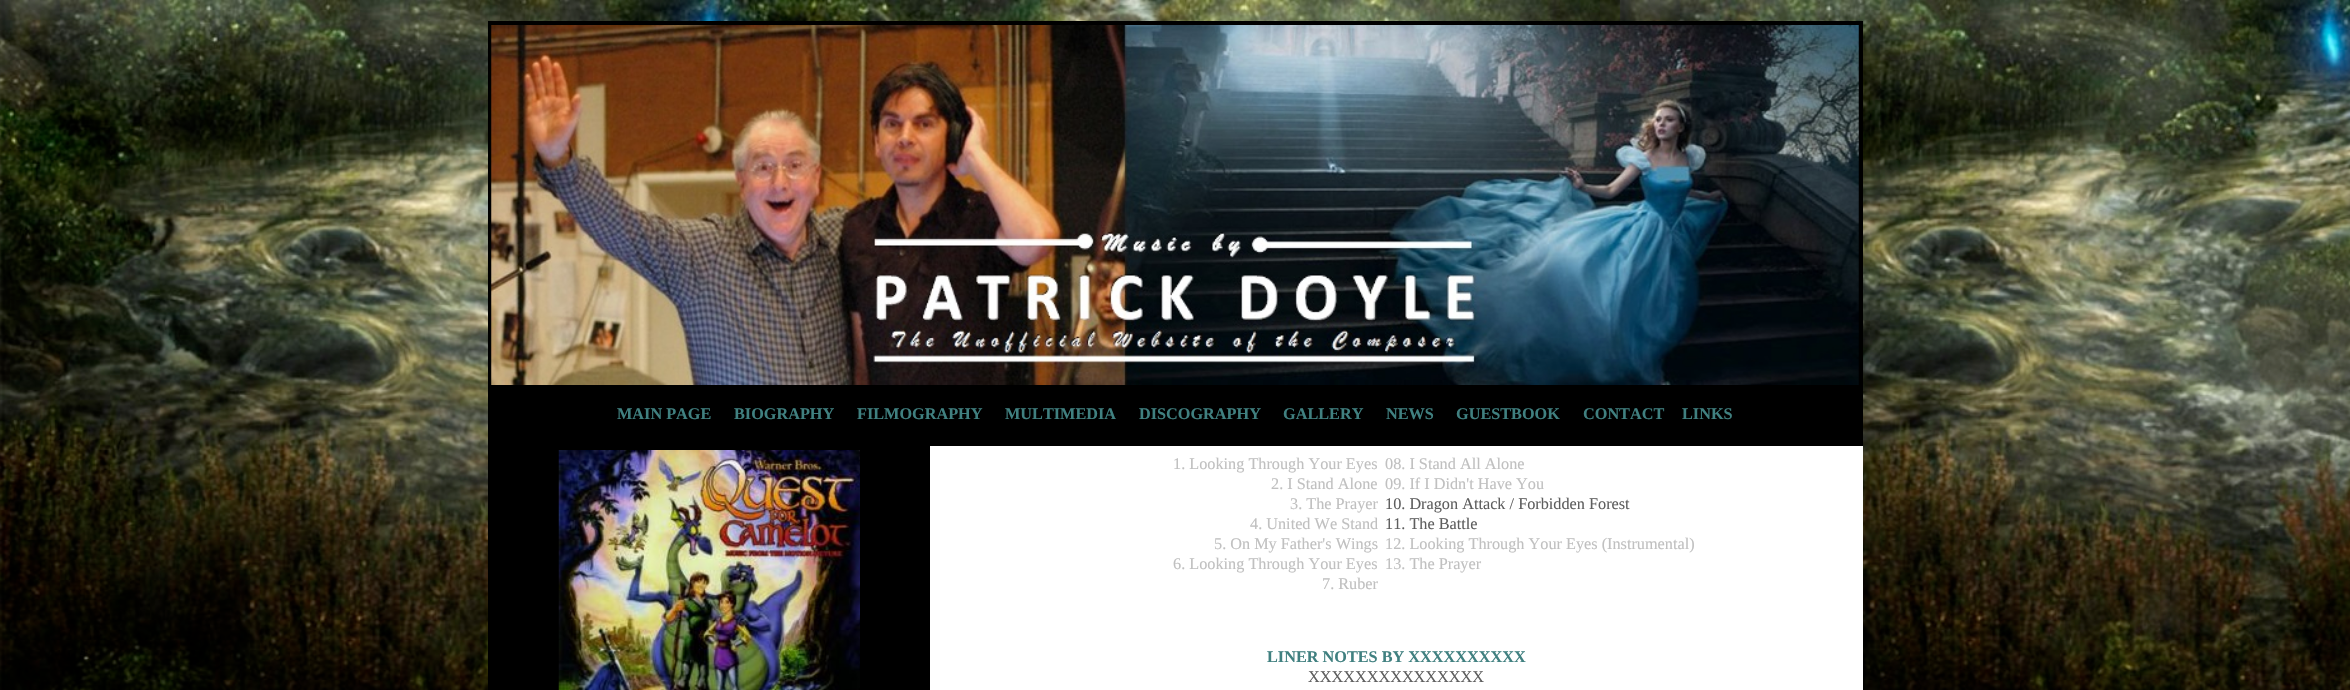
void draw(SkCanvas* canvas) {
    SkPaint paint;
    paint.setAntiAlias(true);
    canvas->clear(0xFFFFFFFF);
    canvas->drawImageRect(SkImages::DeferredFromEncodedData(SkData::MakeFromFileName("img1.png")), SkRect::MakeXYWH(0, 0, 2350, 690), SkSamplingOptions());
    paint.setColor(0xFF000000);
    canvas->drawRect(SkRect::MakeXYWH(488, 21, 1375, 425), paint);
    canvas->drawImageRect(SkImages::DeferredFromEncodedData(SkData::MakeFromFileName("img2.png")), SkRect::MakeXYWH(491, 25, 1368, 360), SkSamplingOptions());
    SkFont font1(fontMgr->matchFamilyStyle("Liberation Serif", SkFontStyle::Bold()), 16.25f);
    font1.setSubpixel(true);
    paint.setColor(0xFF408080);
    canvas->drawString("MAIN PAGE", 617, 419, font1, paint);
    canvas->drawString("BIOGRAPHY", 734, 419, font1, paint);
    canvas->drawString("FILMOGRAPHY", 857, 419, font1, paint);
    canvas->drawString("MULTIMEDIA", 1005, 419, font1, paint);
    canvas->drawString("DISCOGRAPHY", 1139, 419, font1, paint);
    canvas->drawString("GALLERY", 1283, 419, font1, paint);
    canvas->drawString("NEWS", 1386, 419, font1, paint);
    canvas->drawString("GUESTBOOK", 1456, 419, font1, paint);
    canvas->drawString("CONTACT", 1583, 419, font1, paint);
    canvas->drawString("LINKS", 1682, 419, font1, paint);
    paint.setColor(0xFF000000);
    canvas->drawRect(SkRect::MakeXYWH(488, 446, 442, 244), paint);
    canvas->drawImageRect(SkImages::DeferredFromEncodedData(SkData::MakeFromFileName("img3.png")), SkRect::MakeXYWH(558, 450, 302, 240), SkSamplingOptions());
    paint.setColor(0xFFFFFFFF);
    canvas->drawRect(SkRect::MakeXYWH(930, 446, 933, 244), paint);
    SkFont font2(fontMgr->matchFamilyStyle("Liberation Serif", SkFontStyle::Normal()), 16.25f);
    font2.setSubpixel(true);
    paint.setColor(0xFFC0C0C0);
    canvas->drawString("1. Looking Through Your Eyes", 1173, 469, font2, paint);
    canvas->drawString("2. I Stand Alone", 1271, 489, font2, paint);
    canvas->drawString("3. The Prayer", 1290, 509, font2, paint);
    canvas->drawString("4. United We Stand", 1250, 529, font2, paint);
    canvas->drawString("5. On My Father's Wings", 1214, 549, font2, paint);
    canvas->drawString("6. Looking Through Your Eyes", 1173, 569, font2, paint);
    canvas->drawString("7. Ruber", 1322, 589, font2, paint);
    canvas->drawString("08. I Stand All Alone", 1385, 469, font2, paint);
    canvas->drawString("09. If I Didn't Have You", 1385, 489, font2, paint);
    paint.setColor(0xFF5E5E5E);
    canvas->drawString("10. Dragon Attack / Forbidden Forest", 1385, 509, font2, paint);
    canvas->drawString("11. The Battle", 1385, 529, font2, paint);
    paint.setColor(0xFFC0C0C0);
    canvas->drawString("12. Looking Through Your Eyes (Instrumental)", 1385, 549, font2, paint);
    canvas->drawString("13. The Prayer", 1385, 569, font2, paint);
    paint.setColor(0xFF408080);
    canvas->drawString("LINER NOTES BY XXXXXXXXXX", 1267, 662, font1, paint);
    paint.setColor(0xFF5E5E5E);
    canvas->drawString("XXXXXXXXXXXXXXX", 1308, 682, font2, paint);
}
